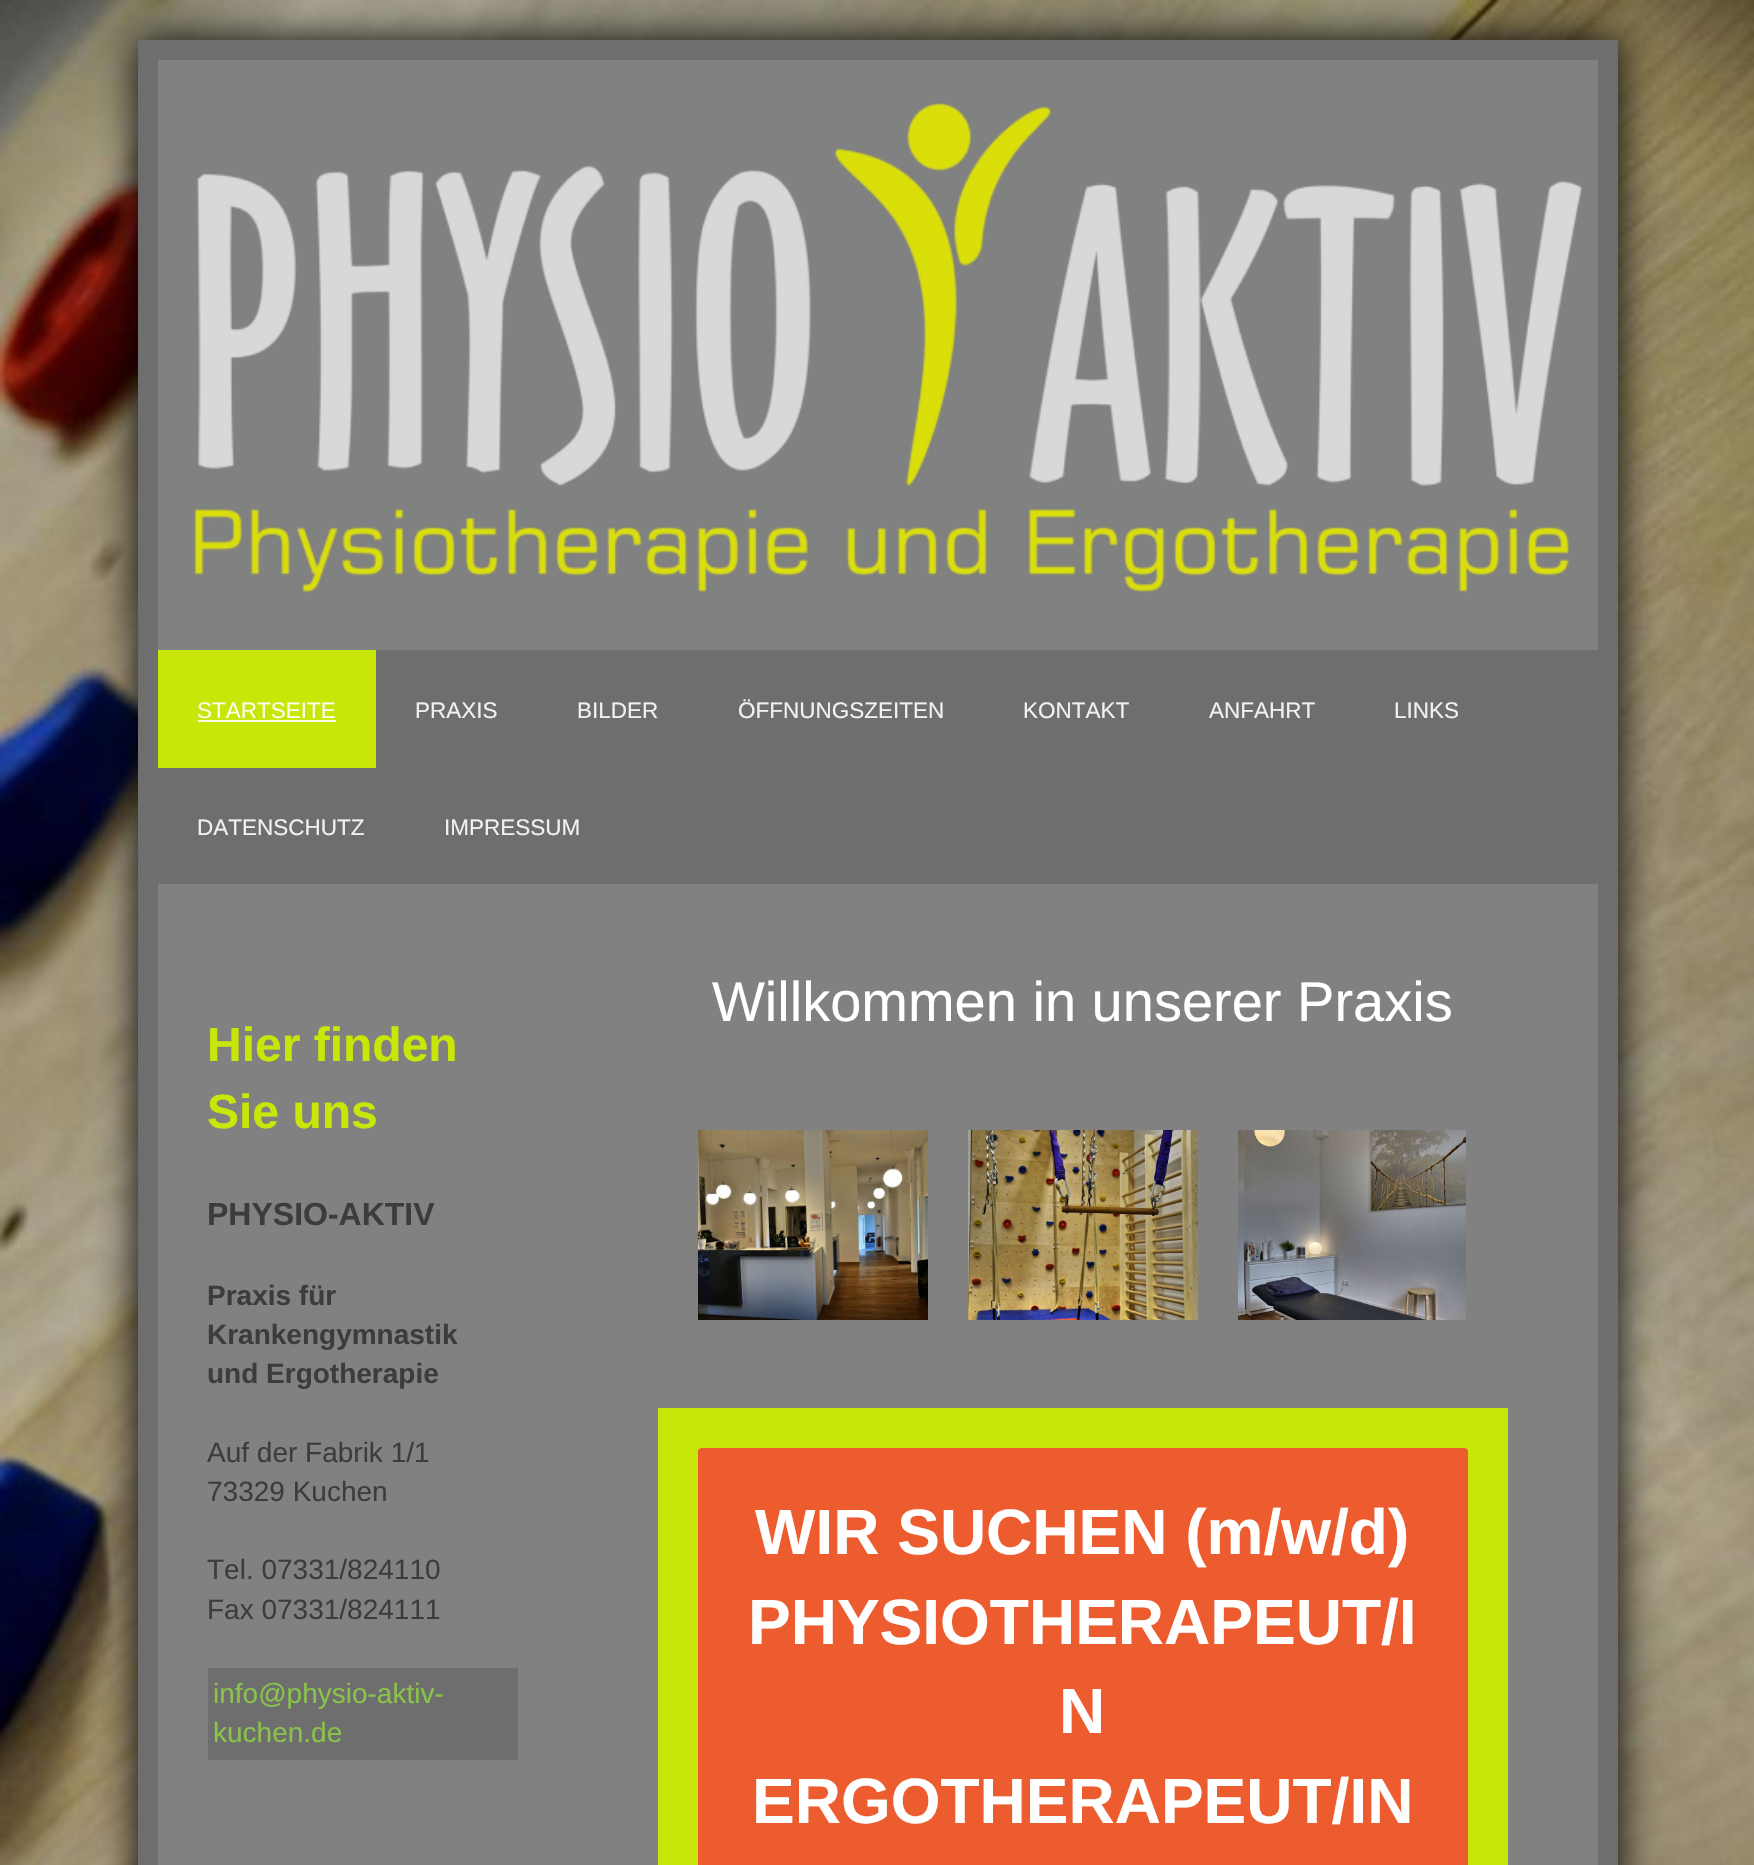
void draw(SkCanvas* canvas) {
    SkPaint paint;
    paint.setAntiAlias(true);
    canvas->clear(0xFFFFFFFF);
    canvas->drawImageRect(SkImages::DeferredFromEncodedData(SkData::MakeFromFileName("img1.png")), SkRect::MakeXYWH(0, 0, 1754, 1865), SkSamplingOptions());
    paint.setColor(0xFF000000);
    paint.setMaskFilter(SkMaskFilter::MakeBlur(kNormal_SkBlurStyle, 20));
    canvas->drawRect(SkRect::MakeXYWH(138, 40, 1480, 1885), paint);
    paint.setMaskFilter(nullptr);
    paint.setColor(0xFF6E6E6E);
    canvas->drawRect(SkRect::MakeXYWH(138, 40, 1480, 1825), paint);
    canvas->drawImageRect(SkImages::DeferredFromEncodedData(SkData::MakeFromFileName("img2.png")), SkRect::MakeXYWH(158, 60, 1440, 590), SkSamplingOptions());
    paint.setColor(0xFFC8E608);
    canvas->drawRect(SkRect::MakeXYWH(158, 650, 218, 118), paint);
    SkFont font1(fontMgr->matchFamilyStyle("Liberation Sans", SkFontStyle::Normal()), 22.5f);
    font1.setSubpixel(true);
    paint.setColor(0xFFFAFDE6);
    canvas->drawString("STARTSEITE", 197, 718, font1, paint);
    canvas->drawRect(SkRect::MakeXYWH(198, 720, 138, 2), paint);
    paint.setColor(0xFFF1F1F1);
    canvas->drawString("PRAXIS", 415, 718, font1, paint);
    canvas->drawString("BILDER", 577, 718, font1, paint);
    canvas->drawString("ÖFFNUNGSZEITEN", 738, 718, font1, paint);
    canvas->drawString("KONTAKT", 1023, 718, font1, paint);
    canvas->drawString("ANFAHRT", 1209, 718, font1, paint);
    canvas->drawString("LINKS", 1394, 718, font1, paint);
    canvas->drawString("DATENSCHUTZ", 197, 835, font1, paint);
    canvas->drawString("IMPRESSUM", 444, 835, font1, paint);
    paint.setColor(0xFF818181);
    canvas->drawRect(SkRect::MakeXYWH(158, 884, 1440, 981), paint);
    SkFont font2(fontMgr->matchFamilyStyle("Liberation Sans", SkFontStyle::Bold()), 48);
    font2.setSubpixel(true);
    paint.setColor(0xFFC8E608);
    canvas->drawString("Hier finden", 207, 1061, font2, paint);
    canvas->drawString("Sie uns", 207, 1128, font2, paint);
    SkFont font3(fontMgr->matchFamilyStyle("Liberation Sans", SkFontStyle::Bold()), 32);
    font3.setSubpixel(true);
    paint.setColor(0xFF3C3C3C);
    canvas->drawString("PHYSIO-AKTIV", 207, 1225, font3, paint);
    SkFont font4(fontMgr->matchFamilyStyle("Liberation Sans", SkFontStyle::Bold()), 28);
    font4.setSubpixel(true);
    canvas->drawString("Praxis für", 207, 1305, font4, paint);
    canvas->drawString("Krankengymnastik", 207, 1344, font4, paint);
    canvas->drawString("und Ergotherapie", 207, 1383, font4, paint);
    SkFont font5(fontMgr->matchFamilyStyle("Liberation Sans", SkFontStyle::Normal()), 28);
    font5.setSubpixel(true);
    canvas->drawString("Auf der Fabrik 1/1", 207, 1462, font5, paint);
    canvas->drawString("73329 Kuchen", 207, 1501, font5, paint);
    canvas->drawString("Tel. 07331/824110", 207, 1579, font5, paint);
    canvas->drawString("Fax 07331/824111", 207, 1619, font5, paint);
    paint.setColor(0xFF6E6E6E);
    canvas->drawRect(SkRect::MakeXYWH(208, 1668, 310, 92), paint);
    paint.setColor(0xFF8AC34A);
    canvas->drawString("info@physio-aktiv-", 213, 1703, font5, paint);
    canvas->drawString("kuchen.de", 213, 1742, font5, paint);
    SkFont font6(fontMgr->matchFamilyStyle("Liberation Sans", SkFontStyle::Normal()), 56);
    font6.setSubpixel(true);
    paint.setColor(0xFFFFFFFF);
    canvas->drawString("Willkommen in unserer Praxis", 712, 1021, font6, paint);
    canvas->drawImageRect(SkImages::DeferredFromEncodedData(SkData::MakeFromFileName("img3.png")), SkRect::MakeXYWH(698, 1130, 230, 190), SkSamplingOptions());
    canvas->drawImageRect(SkImages::DeferredFromEncodedData(SkData::MakeFromFileName("img4.png")), SkRect::MakeXYWH(968, 1130, 230, 190), SkSamplingOptions());
    canvas->drawImageRect(SkImages::DeferredFromEncodedData(SkData::MakeFromFileName("img5.png")), SkRect::MakeXYWH(1238, 1130, 228, 190), SkSamplingOptions());
    paint.setColor(0xFFC8E608);
    canvas->drawRect(SkRect::MakeXYWH(658, 1408, 850, 457), paint);
    paint.setColor(0xFFED5C2F);
    canvas->drawRoundRect(SkRect::MakeXYWH(698, 1448, 770, 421), 4, 4, paint);
    SkFont font7(fontMgr->matchFamilyStyle("Liberation Sans", SkFontStyle::Bold()), 64);
    font7.setSubpixel(true);
    paint.setColor(0xFFFFFFFF);
    canvas->drawString("WIR SUCHEN (m/w/d)", 755, 1554, font7, paint);
    canvas->drawString("PHYSIOTHERAPEUT/I", 748, 1644, font7, paint);
    canvas->drawString("N", 1059, 1733, font7, paint);
    canvas->drawString("ERGOTHERAPEUT/IN", 752, 1823, font7, paint);
}
